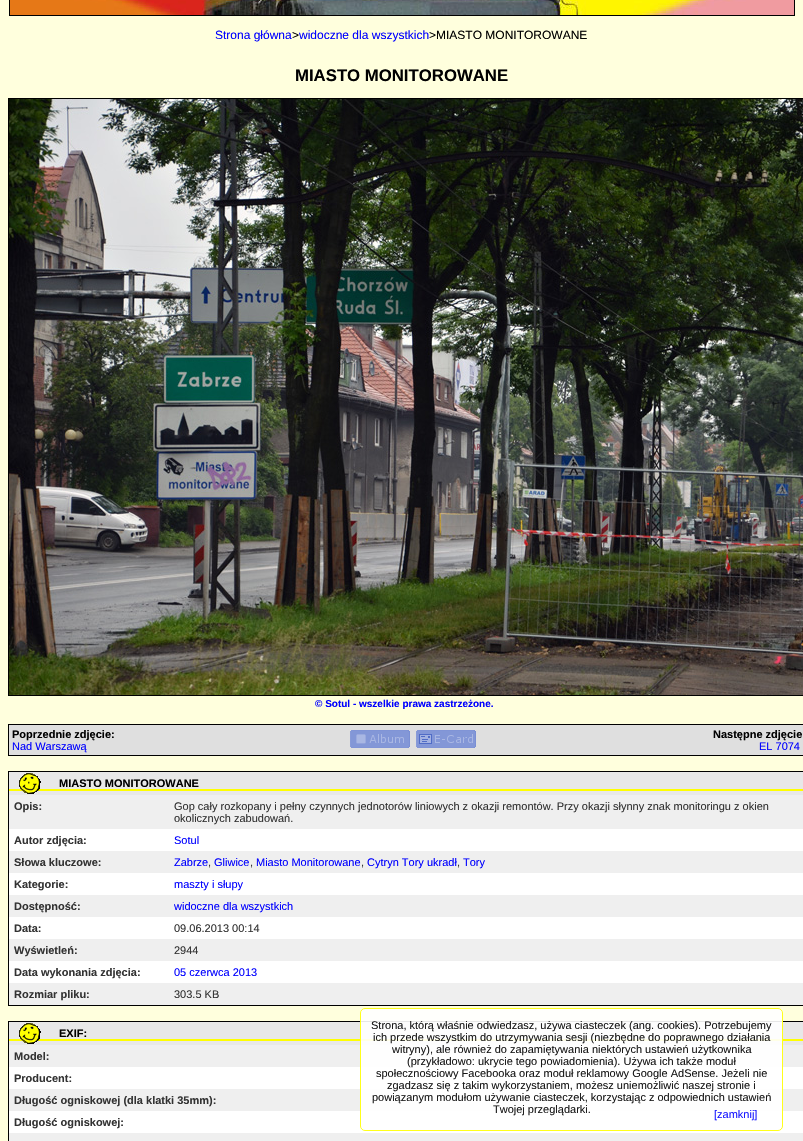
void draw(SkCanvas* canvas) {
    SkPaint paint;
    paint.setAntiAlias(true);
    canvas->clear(0xFFFFFFDD);
    canvas->drawImageRect(SkImages::DeferredFromEncodedData(SkData::MakeFromFileName("img1.png")), SkRect::MakeXYWH(10, 0, 784, 15), SkSamplingOptions());
    paint.setStyle(SkPaint::kStroke_Style);
    paint.setStrokeWidth(1);
    paint.setColor(0xFF000000);
    canvas->drawRect(SkRect::MakeXYWH(9.5f, -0.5f, 785, 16), paint);
    SkFont font1(fontMgr->matchFamilyStyle("Liberation Sans", SkFontStyle::Normal()), 12);
    font1.setSubpixel(true);
    paint.setStyle(SkPaint::kFill_Style);
    paint.setColor(0xFF0000FF);
    canvas->drawString("Strona główna", 215, 39, font1, paint);
    paint.setColor(0xFF000000);
    canvas->drawString(">", 292, 39, font1, paint);
    paint.setColor(0xFF0000FF);
    canvas->drawString("widoczne dla wszystkich", 299, 39, font1, paint);
    paint.setColor(0xFF000000);
    canvas->drawString(">MIASTO MONITOROWANE", 429, 39, font1, paint);
    SkFont font2(fontMgr->matchFamilyStyle("Liberation Sans", SkFontStyle::Bold()), 16.75f);
    font2.setSubpixel(true);
    canvas->drawString("MIASTO MONITOROWANE", 295, 81, font2, paint);
    paint.setStyle(SkPaint::kStroke_Style);
    canvas->drawRect(SkRect::MakeXYWH(8.5f, 98.5f, 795, 597), paint);
    canvas->drawImageRect(SkImages::DeferredFromEncodedData(SkData::MakeFromFileName("img2.png")), SkRect::MakeXYWH(9, 99, 794, 596), SkSamplingOptions());
    SkFont font3(fontMgr->matchFamilyStyle("Liberation Sans", SkFontStyle::Bold()), 10);
    font3.setSubpixel(true);
    paint.setStyle(SkPaint::kFill_Style);
    paint.setColor(0xFF0000FF);
    canvas->drawString("© Sotul - wszelkie prawa zastrzeżone.", 315, 707, font3, paint);
    paint.setStyle(SkPaint::kStroke_Style);
    paint.setColor(0xFF000000);
    canvas->drawRect(SkRect::MakeXYWH(8.5f, 724.5f, 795, 31), paint);
    paint.setStyle(SkPaint::kFill_Style);
    paint.setColor(0xFFDFDFDF);
    canvas->drawRect(SkRect::MakeXYWH(9, 725, 794, 30), paint);
    SkFont font4(fontMgr->matchFamilyStyle("Liberation Sans", SkFontStyle::Bold()), 11);
    font4.setSubpixel(true);
    paint.setColor(0xFF000000);
    canvas->drawString("Poprzednie zdjęcie:", 12, 738, font4, paint);
    SkFont font5(fontMgr->matchFamilyStyle("Liberation Sans", SkFontStyle::Normal()), 11);
    font5.setSubpixel(true);
    paint.setColor(0xFF0000FF);
    canvas->drawString("Nad Warszawą", 12, 750, font5, paint);
    canvas->drawImageRect(SkImages::DeferredFromEncodedData(SkData::MakeFromFileName("img3.png")), SkRect::MakeXYWH(350, 730, 60, 18), SkSamplingOptions());
    canvas->drawImageRect(SkImages::DeferredFromEncodedData(SkData::MakeFromFileName("img4.png")), SkRect::MakeXYWH(416, 730, 60, 18), SkSamplingOptions());
    paint.setColor(0xFF000000);
    canvas->drawString("Następne zdjęcie", 713, 738, font4, paint);
    paint.setColor(0xFF0000FF);
    canvas->drawString("EL 7074", 759, 750, font5, paint);
    paint.setStyle(SkPaint::kStroke_Style);
    paint.setColor(0xFF000000);
    canvas->drawRect(SkRect::MakeXYWH(8.5f, 771.5f, 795, 234), paint);
    paint.setStyle(SkPaint::kFill_Style);
    paint.setColor(0xFFE8E8E8);
    canvas->drawRect(SkRect::MakeXYWH(9, 772, 794, 23), paint);
    canvas->drawImageRect(SkImages::DeferredFromEncodedData(SkData::MakeFromFileName("img5.png")), SkRect::MakeXYWH(9, 773, 794, 21), SkSamplingOptions());
    paint.setColor(0xFF000000);
    canvas->drawString("MIASTO MONITOROWANE", 59, 787, font4, paint);
    paint.setColor(0xFFEFEFEF);
    canvas->drawRect(SkRect::MakeXYWH(9, 795, 794, 34), paint);
    paint.setColor(0xFF333333);
    canvas->drawString("Opis:", 14, 810, font4, paint);
    canvas->drawString("Gop cały rozkopany i pełny czynnych jednotorów liniowych z okazji remontów. Przy okazji słynny znak monitoringu z okien", 174, 810, font5, paint);
    canvas->drawString("okolicznych zabudowań.", 174, 822, font5, paint);
    paint.setColor(0xFFFFFFFF);
    canvas->drawRect(SkRect::MakeXYWH(9, 829, 794, 22), paint);
    paint.setColor(0xFF333333);
    canvas->drawString("Autor zdjęcia:", 14, 844, font4, paint);
    paint.setColor(0xFF0000FF);
    canvas->drawString("Sotul", 174, 844, font5, paint);
    paint.setColor(0xFFEFEFEF);
    canvas->drawRect(SkRect::MakeXYWH(9, 851, 794, 22), paint);
    paint.setColor(0xFF333333);
    canvas->drawString("Słowa kluczowe:", 14, 866, font4, paint);
    paint.setColor(0xFF0000FF);
    canvas->drawString("Zabrze", 174, 866, font5, paint);
    paint.setColor(0xFF333333);
    canvas->drawString(",", 208, 866, font5, paint);
    paint.setColor(0xFF0000FF);
    canvas->drawString("Gliwice", 214, 866, font5, paint);
    paint.setColor(0xFF333333);
    canvas->drawString(",", 250, 866, font5, paint);
    paint.setColor(0xFF0000FF);
    canvas->drawString("Miasto Monitorowane", 256, 866, font5, paint);
    paint.setColor(0xFF333333);
    canvas->drawString(",", 361, 866, font5, paint);
    paint.setColor(0xFF0000FF);
    canvas->drawString("Cytryn Tory ukradł", 367, 866, font5, paint);
    paint.setColor(0xFF333333);
    canvas->drawString(",", 457, 866, font5, paint);
    paint.setColor(0xFF0000FF);
    canvas->drawString("Tory", 463, 866, font5, paint);
    paint.setColor(0xFFFFFFFF);
    canvas->drawRect(SkRect::MakeXYWH(9, 873, 794, 22), paint);
    paint.setColor(0xFF333333);
    canvas->drawString("Kategorie:", 14, 888, font4, paint);
    paint.setColor(0xFF0000FF);
    canvas->drawString("maszty i słupy", 174, 888, font5, paint);
    paint.setColor(0xFFEFEFEF);
    canvas->drawRect(SkRect::MakeXYWH(9, 895, 794, 22), paint);
    paint.setColor(0xFF333333);
    canvas->drawString("Dostępność:", 14, 910, font4, paint);
    paint.setColor(0xFF0000FF);
    canvas->drawString("widoczne dla wszystkich", 174, 910, font5, paint);
    paint.setColor(0xFFFFFFFF);
    canvas->drawRect(SkRect::MakeXYWH(9, 917, 794, 22), paint);
    paint.setColor(0xFF333333);
    canvas->drawString("Data:", 14, 932, font4, paint);
    canvas->drawString("09.06.2013 00:14", 174, 932, font5, paint);
    paint.setColor(0xFFEFEFEF);
    canvas->drawRect(SkRect::MakeXYWH(9, 939, 794, 22), paint);
    paint.setColor(0xFF333333);
    canvas->drawString("Wyświetleń:", 14, 954, font4, paint);
    canvas->drawString("2944", 174, 954, font5, paint);
    paint.setColor(0xFFFFFFFF);
    canvas->drawRect(SkRect::MakeXYWH(9, 961, 794, 22), paint);
    paint.setColor(0xFF333333);
    canvas->drawString("Data wykonania zdjęcia:", 14, 976, font4, paint);
    paint.setColor(0xFF0000FF);
    canvas->drawString("05 czerwca 2013", 174, 976, font5, paint);
    paint.setColor(0xFFEFEFEF);
    canvas->drawRect(SkRect::MakeXYWH(9, 983, 794, 22), paint);
    paint.setColor(0xFF333333);
    canvas->drawString("Rozmiar pliku:", 14, 998, font4, paint);
    canvas->drawString("303.5 KB", 174, 998, font5, paint);
    paint.setStyle(SkPaint::kStroke_Style);
    paint.setColor(0xFF000000);
    canvas->drawRect(SkRect::MakeXYWH(8.5f, 1021.5f, 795, 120), paint);
    paint.setStyle(SkPaint::kFill_Style);
    paint.setColor(0xFFE8E8E8);
    canvas->drawRect(SkRect::MakeXYWH(9, 1022, 794, 23), paint);
    canvas->drawImageRect(SkImages::DeferredFromEncodedData(SkData::MakeFromFileName("img5.png")), SkRect::MakeXYWH(9, 1023, 794, 21), SkSamplingOptions());
    paint.setColor(0xFF000000);
    canvas->drawString("EXIF:", 59, 1037, font4, paint);
    paint.setColor(0xFFEFEFEF);
    canvas->drawRect(SkRect::MakeXYWH(9, 1045, 794, 22), paint);
    paint.setColor(0xFF333333);
    canvas->drawString("Model:", 14, 1060, font4, paint);
    paint.setColor(0xFFFFFFFF);
    canvas->drawRect(SkRect::MakeXYWH(9, 1067, 794, 22), paint);
    paint.setColor(0xFF333333);
    canvas->drawString("Producent:", 14, 1082, font4, paint);
    paint.setColor(0xFFEFEFEF);
    canvas->drawRect(SkRect::MakeXYWH(9, 1089, 794, 22), paint);
    paint.setColor(0xFF333333);
    canvas->drawString("Długość ogniskowej (dla klatki 35mm):", 14, 1104, font4, paint);
    paint.setColor(0xFFFFFFFF);
    canvas->drawRect(SkRect::MakeXYWH(9, 1111, 794, 22), paint);
    paint.setColor(0xFF333333);
    canvas->drawString("Długość ogniskowej:", 14, 1126, font4, paint);
    paint.setColor(0xFFEFEFEF);
    canvas->drawRect(SkRect::MakeXYWH(9, 1133, 794, 8), paint);
    paint.setColor(0xE6FFFFFF);
    canvas->drawRoundRect(SkRect::MakeXYWH(360, 1008, 423, 123), 5, 5, paint);
    paint.setStyle(SkPaint::kStroke_Style);
    paint.setColor(0xE6FFFF00);
    canvas->drawRoundRect(SkRect::MakeXYWH(360.5f, 1008.5f, 422, 122), 4.5f, 4.5f, paint);
    paint.setStyle(SkPaint::kFill_Style);
    paint.setColor(0xFF191919);
    canvas->drawString("Strona, którą właśnie odwiedzasz, używa ciasteczek (ang. cookies). Potrzebujemy", 371, 1029, font5, paint);
    canvas->drawString("ich przede wszystkim do utrzymywania sesji (niezbędne do poprawnego działania", 373, 1041, font5, paint);
    canvas->drawString("witryny), ale również do zapamiętywania niektórych ustawień użytkownika", 392, 1053, font5, paint);
    canvas->drawString("(przykładowo: ukrycie tego powiadomienia). Używa ich także moduł", 407, 1065, font5, paint);
    canvas->drawString("społecznościowy Facebooka oraz moduł reklamowy Google AdSense. Jeżeli nie", 376, 1077, font5, paint);
    canvas->drawString("zgadzasz się z takim wykorzystaniem, możesz uniemożliwić naszej stronie i", 387, 1089, font5, paint);
    canvas->drawString("powiązanym modułom używanie ciasteczek, korzystając z odpowiednich ustawień", 372, 1101, font5, paint);
    canvas->drawString("Twojej przeglądarki.", 493, 1113, font5, paint);
    paint.setColor(0xFF1919FF);
    canvas->drawString("[zamknij]", 714, 1118, font5, paint);
}
